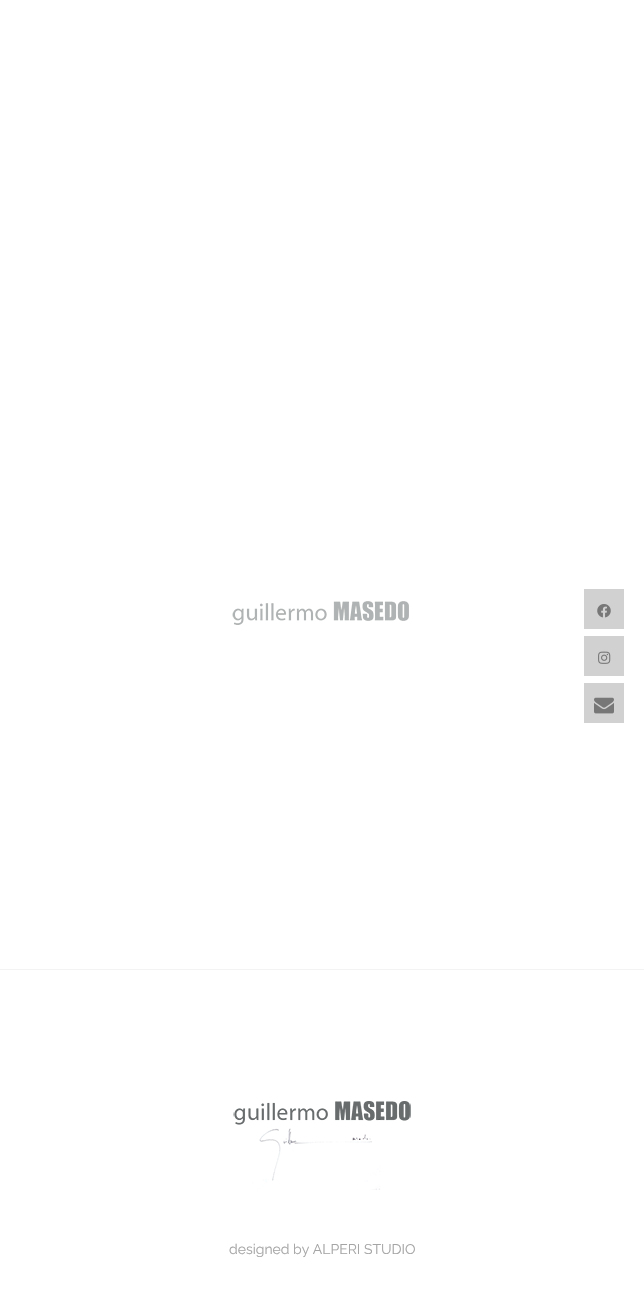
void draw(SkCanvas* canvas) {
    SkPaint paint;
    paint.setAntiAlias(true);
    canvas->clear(0xFFFFFFFF);
    paint.setColor(0xFFD1D1D1);
    canvas->drawRect(SkRect::MakeXYWH(584, 589, 40, 40), paint);
    canvas->drawImageRect(SkImages::DeferredFromEncodedData(SkData::MakeFromFileName("img1.png")), SkRect::MakeXYWH(597, 604, 14, 14), SkSamplingOptions());
    canvas->drawRect(SkRect::MakeXYWH(584, 636, 40, 40), paint);
    canvas->drawImageRect(SkImages::DeferredFromEncodedData(SkData::MakeFromFileName("img2.png")), SkRect::MakeXYWH(598, 651, 13, 13), SkSamplingOptions());
    canvas->drawRect(SkRect::MakeXYWH(584, 683, 40, 40), paint);
    canvas->drawImageRect(SkImages::DeferredFromEncodedData(SkData::MakeFromFileName("img3.png")), SkRect::MakeXYWH(594, 697, 20, 17), SkSamplingOptions());
    canvas->drawImageRect(SkImages::DeferredFromEncodedData(SkData::MakeFromFileName("img4.png")), SkRect::MakeXYWH(232, 601, 177, 24), SkSamplingOptions());
    paint.setColor(0xFFF4F3F3);
    canvas->drawRect(SkRect::MakeXYWH(0, 969, 644, 1), paint);
    canvas->drawImageRect(SkImages::DeferredFromEncodedData(SkData::MakeFromFileName("img5.png")), SkRect::MakeXYWH(233, 1101, 178, 89), SkSamplingOptions());
    SkFont font1(fontMgr->matchFamilyStyle("Raleway", SkFontStyle::Normal()), 14);
    font1.setSubpixel(true);
    paint.setColor(0xFFA5A5A5);
    canvas->drawString("designed by ALPERI STUDIO", 229, 1254, font1, paint);
}
